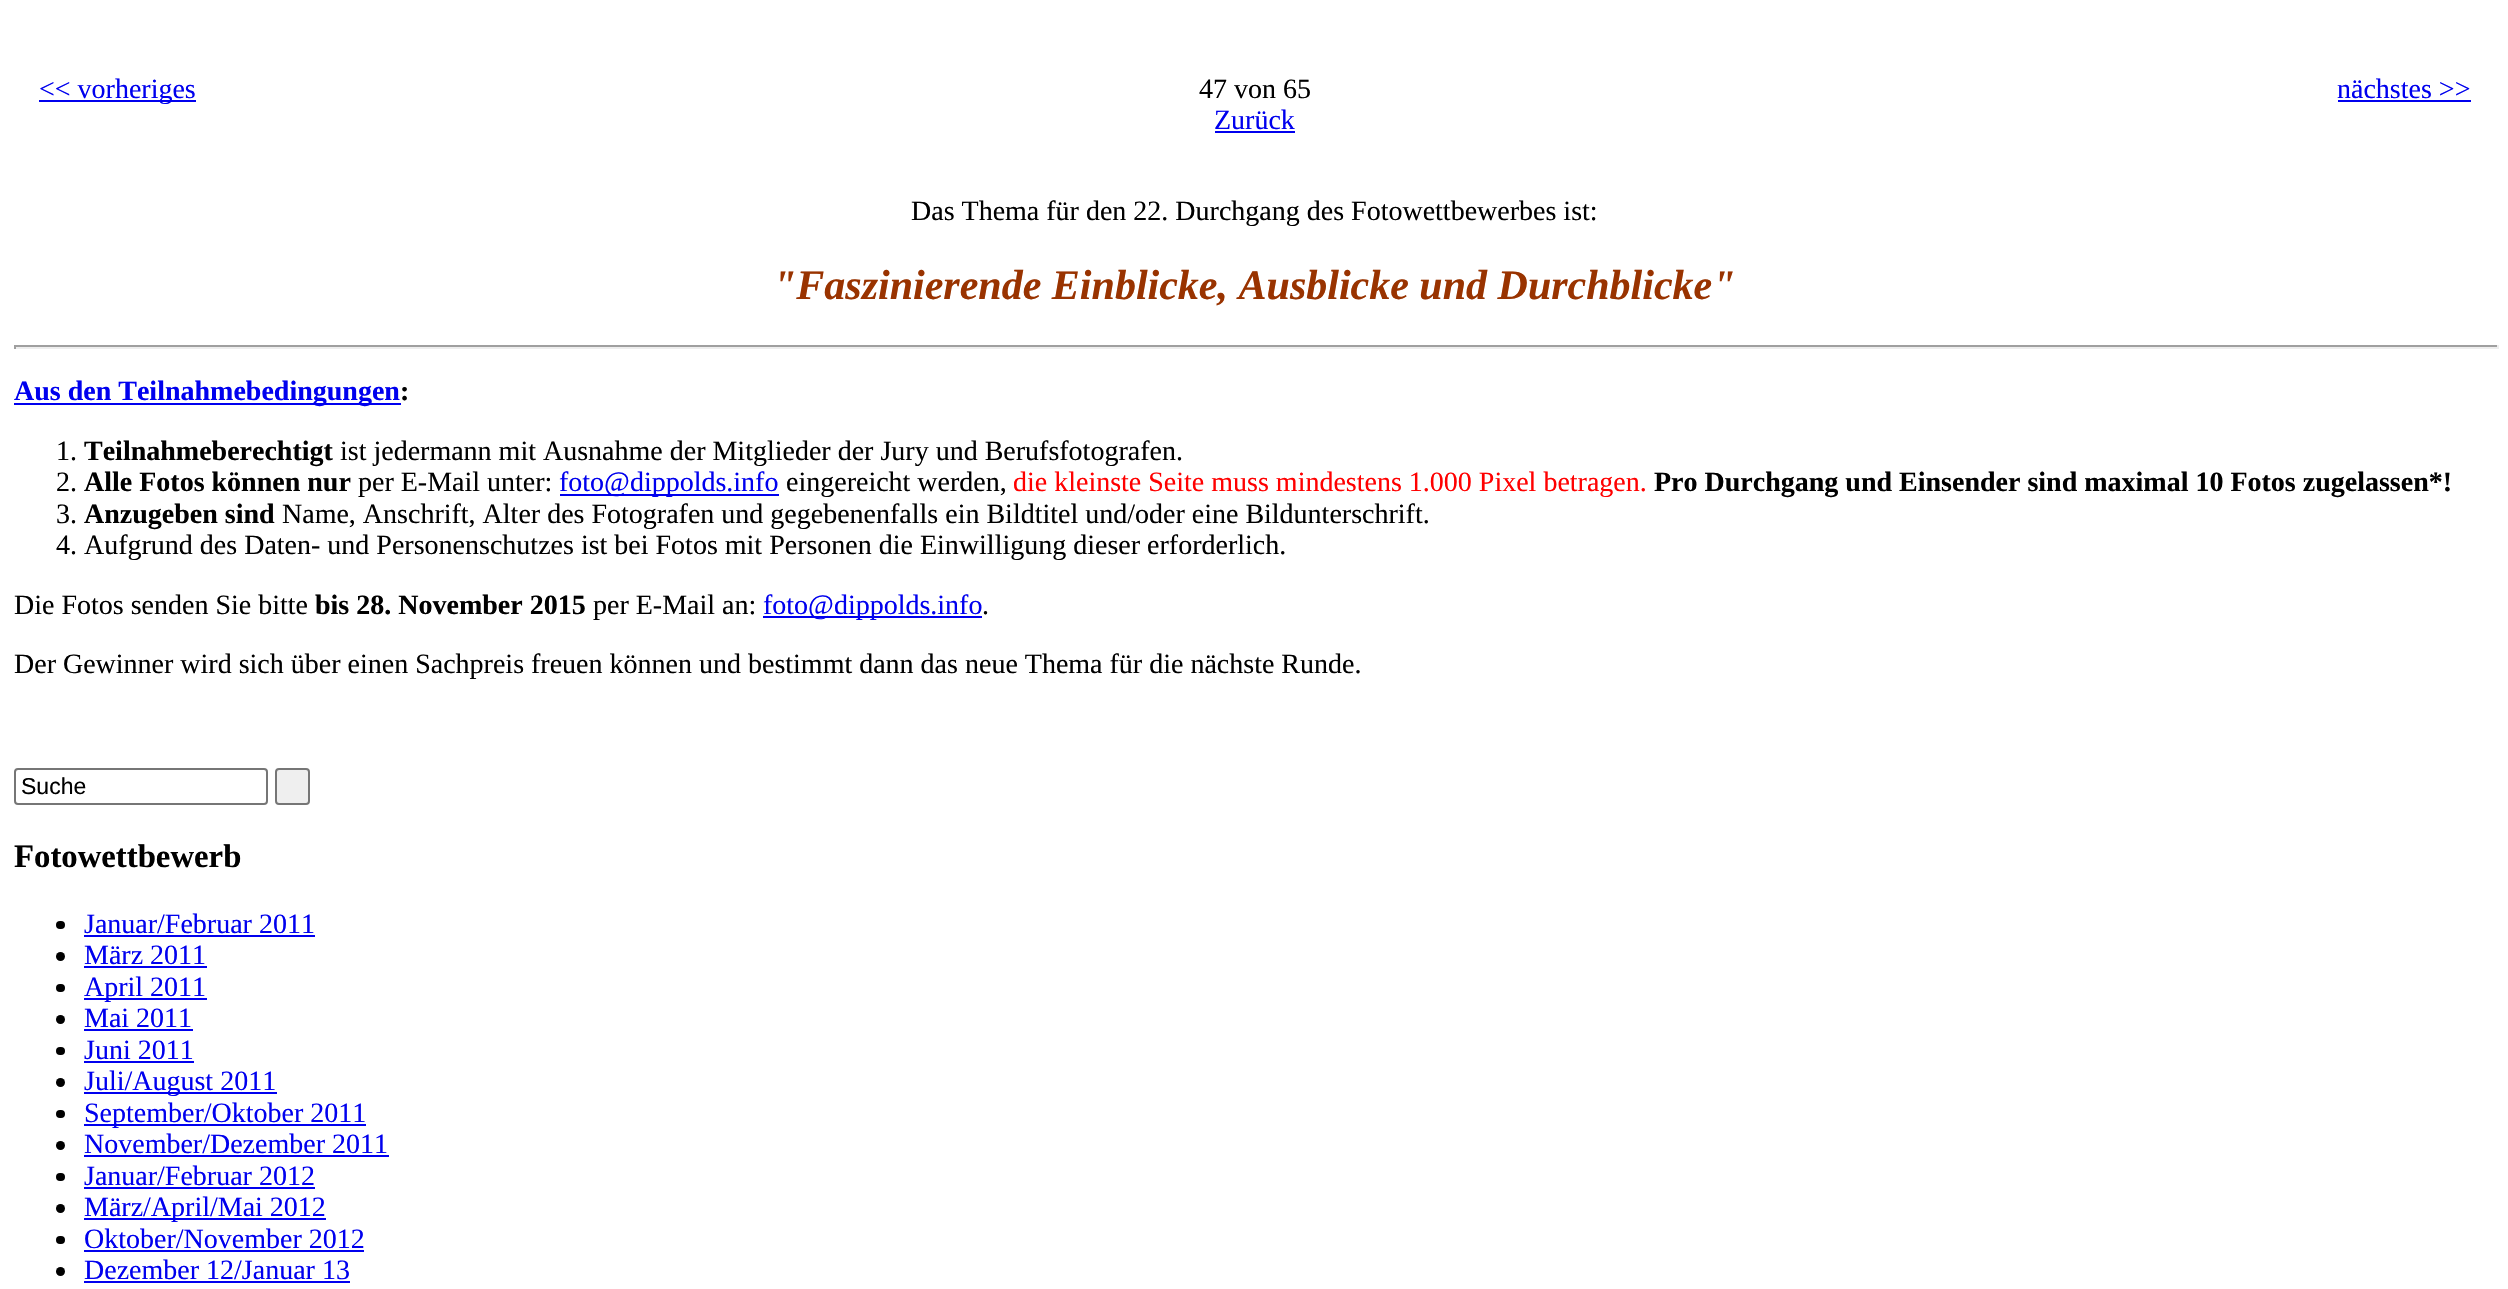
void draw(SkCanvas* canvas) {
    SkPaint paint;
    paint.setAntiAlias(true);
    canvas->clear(0xFFFFFFFF);
    paint.setColor(0xFF0000EE);
    canvas->drawRect(SkRect::MakeXYWH(39, 100, 157, 2), paint);
    SkFont font1(fontMgr->matchFamilyStyle("Liberation Serif", SkFontStyle::Normal()), 28);
    font1.setSubpixel(true);
    canvas->drawString("<< vorheriges", 39, 98, font1, paint);
    paint.setColor(0xFF000000);
    canvas->drawString("47 von 65", 1199, 98, font1, paint);
    paint.setColor(0xFF0000EE);
    canvas->drawString("nächstes >>", 2337, 98, font1, paint);
    canvas->drawRect(SkRect::MakeXYWH(2338, 100, 133, 2), paint);
    canvas->drawString("Zurück", 1214, 129, font1, paint);
    canvas->drawRect(SkRect::MakeXYWH(1215, 131, 80, 2), paint);
    paint.setColor(0xFF000000);
    canvas->drawString("Das Thema für den 22. Durchgang des Fotowettbewerbes ist:", 911, 220, font1, paint);
    SkFont font2(fontMgr->matchFamilyStyle("Liberation Serif", SkFontStyle::BoldItalic()), 42);
    font2.setSubpixel(true);
    paint.setColor(0xFF993300);
    canvas->drawString("\"Faszinierende Einblicke, Ausblicke und Durchblicke\"", 773, 299, font2, paint);
    paint.setColor(0xFF9F9F9F);
    canvas->drawRect(SkRect::MakeXYWH(14, 345, 2485, 2), paint);
    paint.setColor(0xFFEEEEEE);
    canvas->drawRect(SkRect::MakeXYWH(2497, 345, 2, 4), paint);
    canvas->drawRect(SkRect::MakeXYWH(14, 347, 2485, 2), paint);
    paint.setColor(0xFF9F9F9F);
    canvas->drawRect(SkRect::MakeXYWH(14, 345, 2, 4), paint);
    paint.setColor(0xFF0000EE);
    canvas->drawRect(SkRect::MakeXYWH(14, 403, 387, 2), paint);
    SkFont font3(fontMgr->matchFamilyStyle("Liberation Serif", SkFontStyle::Bold()), 28);
    font3.setSubpixel(true);
    canvas->drawString("Aus den Teilnahmebedingungen", 14, 400, font3, paint);
    paint.setColor(0xFF000000);
    canvas->drawString(":", 400, 400, font3, paint);
    canvas->drawString("1.", 56, 460, font1, paint);
    canvas->drawString("Teilnahmeberechtigt", 84, 460, font3, paint);
    canvas->drawString("ist jedermann mit Ausnahme der Mitglieder der Jury und Berufsfotografen.", 340, 460, font1, paint);
    canvas->drawString("2.", 56, 491, font1, paint);
    canvas->drawString("Alle Fotos können nur", 84, 491, font3, paint);
    canvas->drawString("per E-Mail unter:", 358, 491, font1, paint);
    paint.setColor(0xFF0000EE);
    canvas->drawRect(SkRect::MakeXYWH(560, 494, 219, 2), paint);
    canvas->drawString("foto@dippolds.info", 559, 491, font1, paint);
    paint.setColor(0xFF000000);
    canvas->drawString("eingereicht werden,", 786, 491, font1, paint);
    paint.setColor(0xFFFF0000);
    canvas->drawString("die kleinste Seite muss mindestens 1.000 Pixel betragen.", 1013, 491, font1, paint);
    paint.setColor(0xFF000000);
    canvas->drawString("Pro Durchgang und Einsender sind maximal 10 Fotos zugelassen*!", 1654, 491, font3, paint);
    canvas->drawString("3.", 56, 523, font1, paint);
    canvas->drawString("Anzugeben sind", 84, 523, font3, paint);
    canvas->drawString("Name, Anschrift, Alter des Fotografen und gegebenenfalls ein Bildtitel und/oder eine Bildunterschrift.", 282, 523, font1, paint);
    canvas->drawString("4. Aufgrund des Daten- und Personenschutzes ist bei Fotos mit Personen die Einwilligung dieser erforderlich.", 56, 554, font1, paint);
    canvas->drawString("Die Fotos senden Sie bitte", 14, 614, font1, paint);
    canvas->drawString("bis 28. November 2015", 315, 614, font3, paint);
    canvas->drawString("per E-Mail an:", 593, 614, font1, paint);
    paint.setColor(0xFF0000EE);
    canvas->drawRect(SkRect::MakeXYWH(763, 616, 219, 2), paint);
    canvas->drawString("foto@dippolds.info", 763, 614, font1, paint);
    paint.setColor(0xFF000000);
    canvas->drawString(".", 982, 614, font1, paint);
    canvas->drawString("Der Gewinner wird sich über einen Sachpreis freuen können und bestimmt dann das neue Thema für die nächste Runde.", 14, 673, font1, paint);
    paint.setStyle(SkPaint::kStroke_Style);
    paint.setStrokeWidth(2);
    paint.setColor(0xFF767676);
    canvas->drawRoundRect(SkRect::MakeXYWH(15, 769, 252, 35), 3, 3, paint);
    SkFont font4(fontMgr->matchFamilyStyle("Liberation Sans", SkFontStyle::Normal()), 23);
    font4.setSubpixel(true);
    paint.setStyle(SkPaint::kFill_Style);
    paint.setColor(0xFF000000);
    canvas->drawString("Suche", 21, 794, font4, paint);
    paint.setColor(0xFFEFEFEF);
    canvas->drawRoundRect(SkRect::MakeXYWH(276, 769, 33, 35), 3, 3, paint);
    paint.setStyle(SkPaint::kStroke_Style);
    paint.setColor(0xFF767676);
    canvas->drawRoundRect(SkRect::MakeXYWH(276, 769, 33, 35), 3, 3, paint);
    SkFont font5(fontMgr->matchFamilyStyle("Liberation Serif", SkFontStyle::Bold()), 32.75f);
    font5.setSubpixel(true);
    paint.setStyle(SkPaint::kFill_Style);
    paint.setColor(0xFF000000);
    canvas->drawString("Fotowettbewerb", 14, 867, font5, paint);
    canvas->drawRoundRect(SkRect::MakeXYWH(56, 921, 9, 8), 4, 4, paint);
    paint.setColor(0xFF0000EE);
    canvas->drawString("Januar/Februar 2011", 84, 933, font1, paint);
    canvas->drawRect(SkRect::MakeXYWH(84, 935, 231, 2), paint);
    paint.setColor(0xFF000000);
    canvas->drawCircle(60.5f, 956.5f, 4.5f, paint);
    paint.setColor(0xFF0000EE);
    canvas->drawString("März 2011", 84, 964, font1, paint);
    canvas->drawRect(SkRect::MakeXYWH(84, 966, 123, 2), paint);
    paint.setColor(0xFF000000);
    canvas->drawRoundRect(SkRect::MakeXYWH(56, 984, 9, 8), 4, 4, paint);
    paint.setColor(0xFF0000EE);
    canvas->drawRect(SkRect::MakeXYWH(84, 998, 123, 2), paint);
    canvas->drawString("April 2011", 84, 996, font1, paint);
    paint.setColor(0xFF000000);
    canvas->drawCircle(60.5f, 1019.5f, 4.5f, paint);
    paint.setColor(0xFF0000EE);
    canvas->drawString("Mai 2011", 84, 1027, font1, paint);
    canvas->drawRect(SkRect::MakeXYWH(84, 1029, 109, 2), paint);
    paint.setColor(0xFF000000);
    canvas->drawRoundRect(SkRect::MakeXYWH(56, 1047, 9, 8), 4, 4, paint);
    paint.setColor(0xFF0000EE);
    canvas->drawString("Juni 2011", 84, 1059, font1, paint);
    canvas->drawRect(SkRect::MakeXYWH(84, 1061, 110, 2), paint);
    paint.setColor(0xFF000000);
    canvas->drawCircle(60.5f, 1082.5f, 4.5f, paint);
    paint.setColor(0xFF0000EE);
    canvas->drawRect(SkRect::MakeXYWH(84, 1092, 193, 2), paint);
    canvas->drawString("Juli/August 2011", 84, 1090, font1, paint);
    paint.setColor(0xFF000000);
    canvas->drawRoundRect(SkRect::MakeXYWH(56, 1110, 9, 8), 4, 4, paint);
    paint.setColor(0xFF0000EE);
    canvas->drawRect(SkRect::MakeXYWH(84, 1124, 282, 2), paint);
    canvas->drawString("September/Oktober 2011", 84, 1122, font1, paint);
    paint.setColor(0xFF000000);
    canvas->drawCircle(60.5f, 1145.5f, 4.5f, paint);
    paint.setColor(0xFF0000EE);
    canvas->drawString("November/Dezember 2011", 84, 1153, font1, paint);
    canvas->drawRect(SkRect::MakeXYWH(84, 1155, 305, 2), paint);
    paint.setColor(0xFF000000);
    canvas->drawRoundRect(SkRect::MakeXYWH(56, 1173, 9, 8), 4, 4, paint);
    paint.setColor(0xFF0000EE);
    canvas->drawString("Januar/Februar 2012", 84, 1185, font1, paint);
    canvas->drawRect(SkRect::MakeXYWH(84, 1187, 231, 2), paint);
    paint.setColor(0xFF000000);
    canvas->drawCircle(60.5f, 1208.5f, 4.5f, paint);
    paint.setColor(0xFF0000EE);
    canvas->drawRect(SkRect::MakeXYWH(84, 1218, 242, 2), paint);
    canvas->drawString("März/April/Mai 2012", 84, 1216, font1, paint);
    paint.setColor(0xFF000000);
    canvas->drawRoundRect(SkRect::MakeXYWH(56, 1236, 9, 8), 4, 4, paint);
    paint.setColor(0xFF0000EE);
    canvas->drawString("Oktober/November 2012", 84, 1248, font1, paint);
    canvas->drawRect(SkRect::MakeXYWH(84, 1250, 280, 2), paint);
    paint.setColor(0xFF000000);
    canvas->drawCircle(60.5f, 1271.5f, 4.5f, paint);
    paint.setColor(0xFF0000EE);
    canvas->drawString("Dezember 12/Januar 13", 84, 1279, font1, paint);
    canvas->drawRect(SkRect::MakeXYWH(84, 1281, 266, 2), paint);
}
